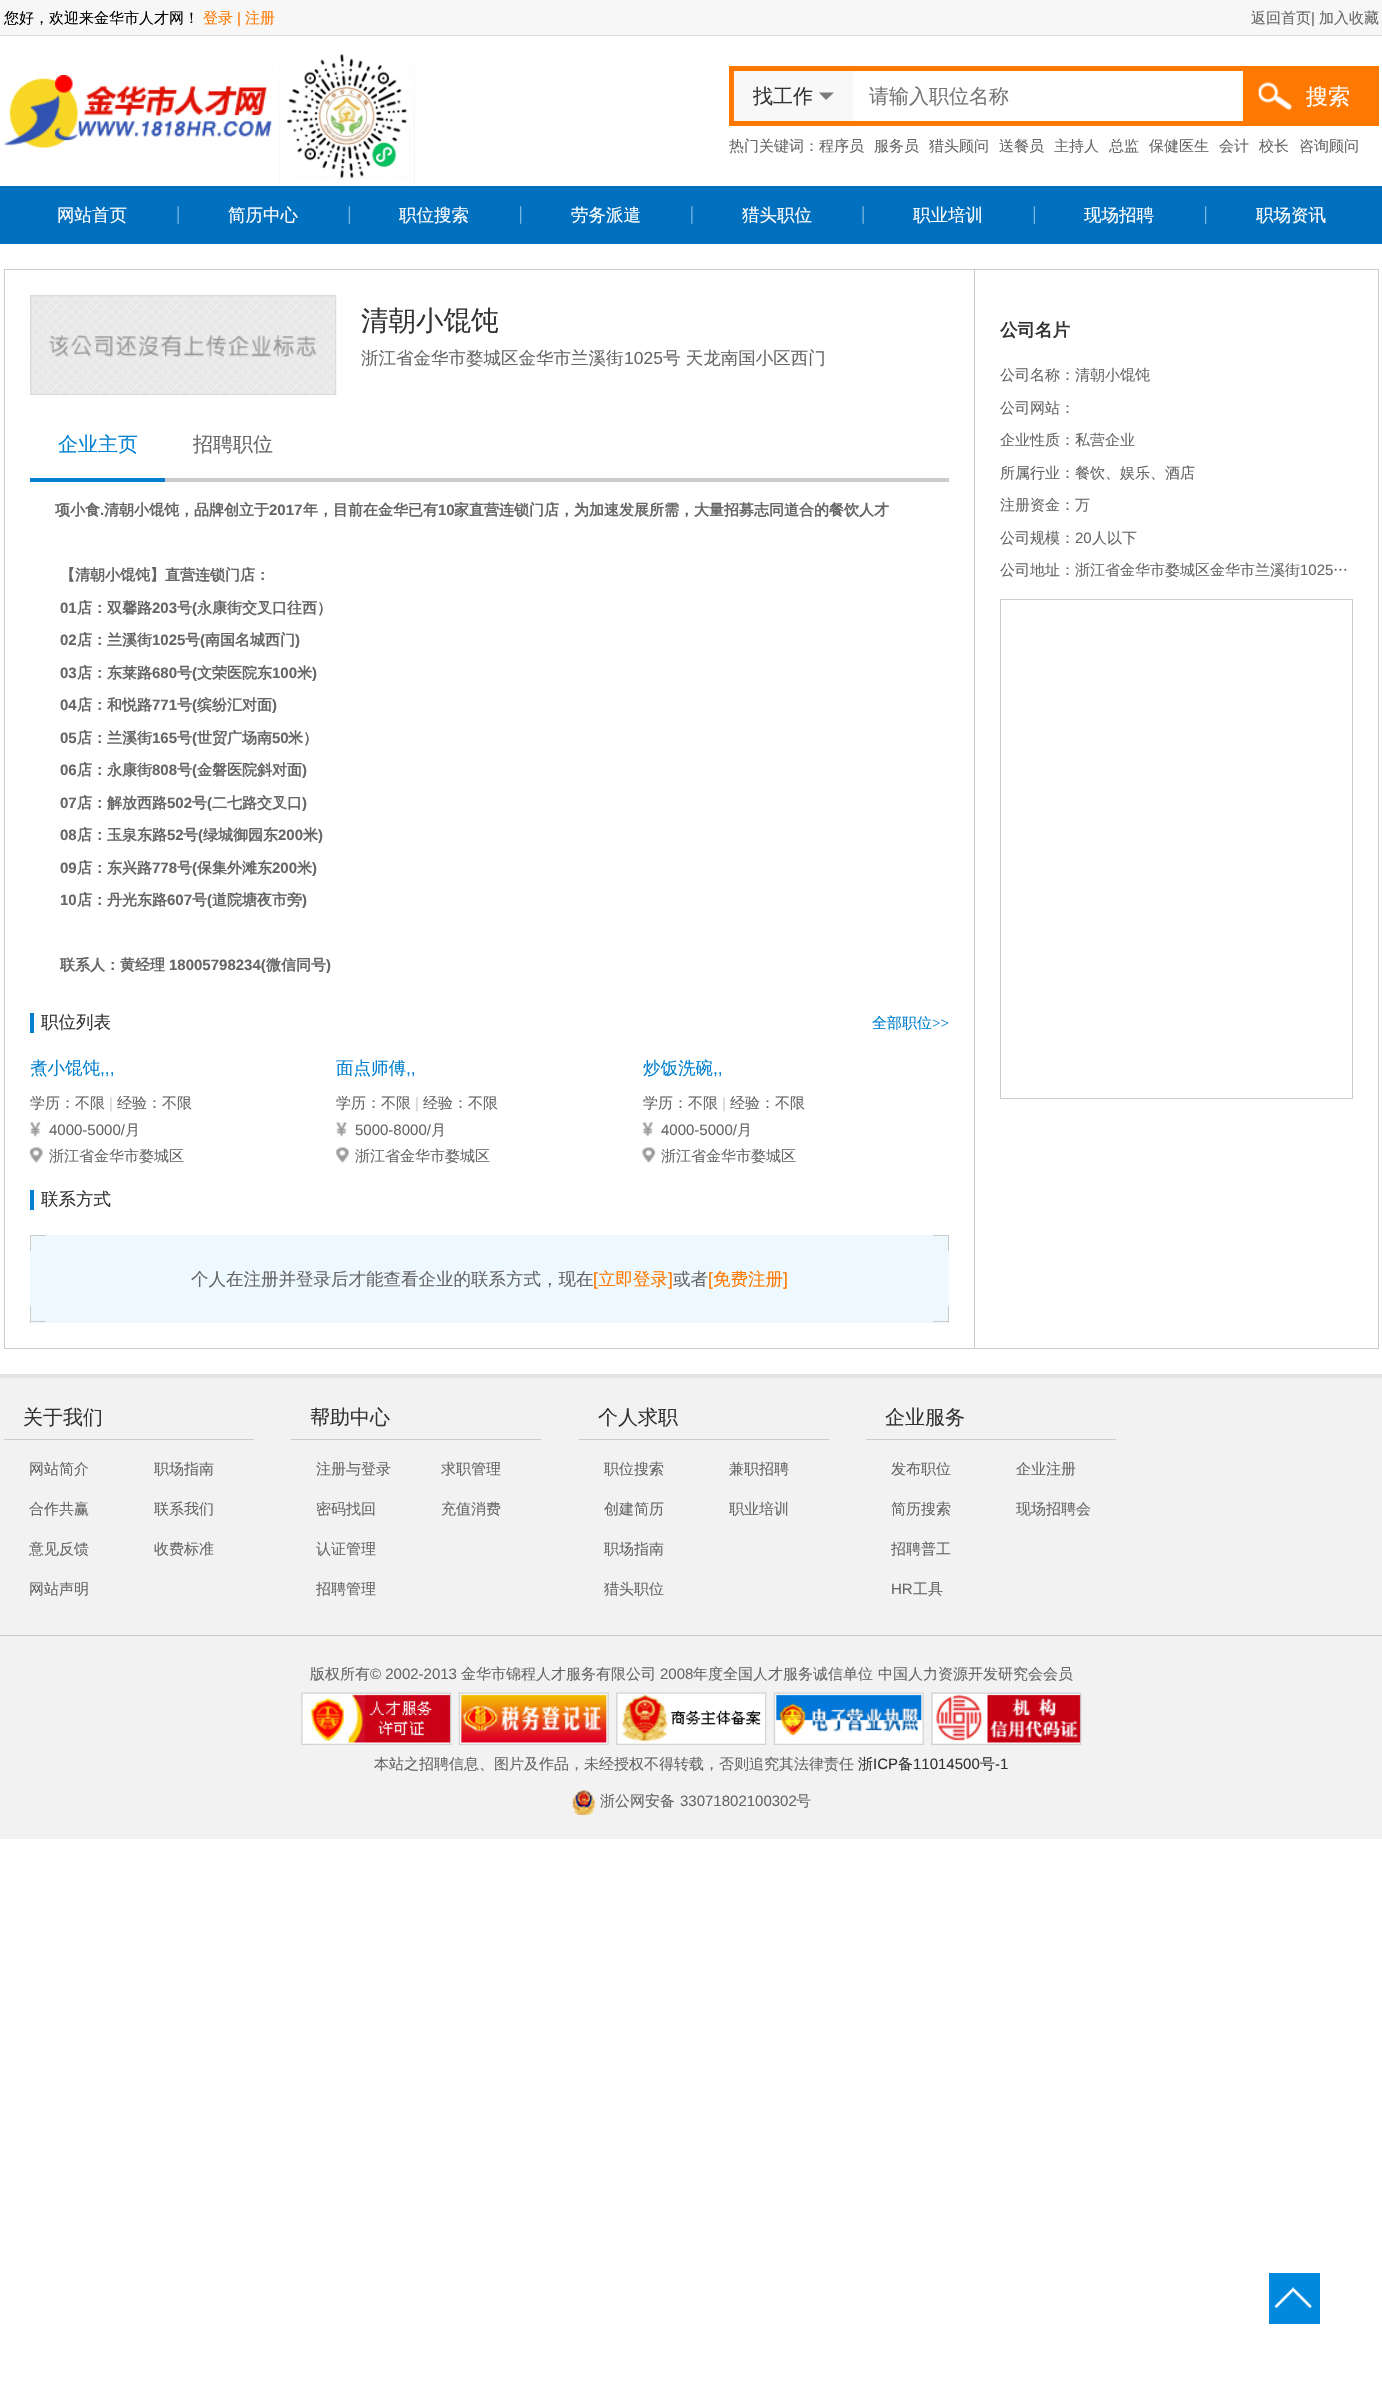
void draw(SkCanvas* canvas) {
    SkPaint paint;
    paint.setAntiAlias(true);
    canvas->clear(0xFFFFFFFF);
    paint.setColor(0xFFF7F7F7);
    canvas->drawRect(SkRect::MakeXYWH(0, 0, 1382, 35), paint);
    paint.setColor(0xFFE0E0E0);
    canvas->drawRect(SkRect::MakeXYWH(0, 35, 1382, 1), paint);
    SkFont font1(fontMgr->matchFamilyStyle("WenQuanYi Zen Hei", SkFontStyle(500, SkFontStyle::kNormal_Width, SkFontStyle::kUpright_Slant)), 15);
    font1.setSubpixel(true);
    paint.setColor(0xFF000000);
    canvas->drawString("您好，欢迎来金华市人才网！", 4, 23, font1, paint);
    paint.setColor(0xFFFF7800);
    canvas->drawString("登录", 203, 23, font1, paint);
    SkFont font2(fontMgr->matchFamilyStyle("Liberation Sans", SkFontStyle::Normal()), 15);
    font2.setSubpixel(true);
    canvas->drawString("|", 237, 23, font2, paint);
    canvas->drawString("注册", 245, 23, font1, paint);
    paint.setColor(0xFF666666);
    canvas->drawString("返回首页", 1251, 23, font1, paint);
    canvas->drawString("|", 1311, 23, font2, paint);
    canvas->drawString("加入收藏", 1319, 23, font1, paint);
    canvas->drawImageRect(SkImages::DeferredFromEncodedData(SkData::MakeFromFileName("img1.png")), SkRect::MakeXYWH(3, 75, 269, 73), SkSamplingOptions());
    canvas->drawImageRect(SkImages::DeferredFromEncodedData(SkData::MakeFromFileName("img2.png")), SkRect::MakeXYWH(279, 49, 136, 136), SkSamplingOptions());
    paint.setColor(0xFFFF7800);
    canvas->drawRect(SkRect::MakeXYWH(729, 66, 650, 60), paint);
    paint.setColor(0xFFF8F8F8);
    canvas->drawRect(SkRect::MakeXYWH(734, 71, 119, 50), paint);
    SkFont font3(fontMgr->matchFamilyStyle("WenQuanYi Zen Hei", SkFontStyle(500, SkFontStyle::kNormal_Width, SkFontStyle::kUpright_Slant)), 20);
    font3.setSubpixel(true);
    paint.setColor(0xFF333333);
    canvas->drawString("找工作", 753, 103, font3, paint);
    paint.setColor(0xFF7B7A7A);
    canvas->drawPath(SkPathBuilder().moveTo(819, 92.5f).lineTo(834, 92.5f).lineTo(826, 100).close().detach(), paint);
    paint.setColor(0xFFFFFFFF);
    canvas->drawRect(SkRect::MakeXYWH(853, 71, 390, 50), paint);
    paint.setColor(0xFF757575);
    canvas->drawString("请输入职位名称", 869, 103, font3, paint);
    canvas->drawImageRect(SkImages::DeferredFromEncodedData(SkData::MakeFromFileName("img3.png")), SkRect::MakeXYWH(1258, 82, 35, 29), SkSamplingOptions());
    SkFont font4(fontMgr->matchFamilyStyle("WenQuanYi Zen Hei", SkFontStyle(500, SkFontStyle::kNormal_Width, SkFontStyle::kUpright_Slant)), 22);
    font4.setSubpixel(true);
    paint.setColor(0xFFFFFFFF);
    canvas->drawString("搜索", 1306, 104, font4, paint);
    paint.setColor(0xFF666666);
    canvas->drawString("热门关键词：程序员", 729, 151, font1, paint);
    canvas->drawString("服务员", 874, 151, font1, paint);
    canvas->drawString("猎头顾问", 929, 151, font1, paint);
    canvas->drawString("送餐员", 999, 151, font1, paint);
    canvas->drawString("主持人", 1054, 151, font1, paint);
    canvas->drawString("总监", 1109, 151, font1, paint);
    canvas->drawString("保健医生", 1149, 151, font1, paint);
    canvas->drawString("会计", 1219, 151, font1, paint);
    canvas->drawString("校长", 1259, 151, font1, paint);
    canvas->drawString("咨询顾问", 1299, 151, font1, paint);
    paint.setColor(0xFF0070BF);
    canvas->drawRect(SkRect::MakeXYWH(0, 186, 1382, 58), paint);
    SkFont font5(fontMgr->matchFamilyStyle("WenQuanYi Zen Hei", SkFontStyle(500, SkFontStyle::kNormal_Width, SkFontStyle::kUpright_Slant)), 17.5f);
    font5.setSubpixel(true);
    paint.setColor(0xFFFFFFFF);
    canvas->drawString("网站首页", 57, 221, font5, paint);
    canvas->drawImageRect(SkImages::DeferredFromEncodedData(SkData::MakeFromFileName("img4.png")), SkRect::MakeXYWH(177, 206, 2, 18), SkSamplingOptions());
    canvas->drawString("简历中心", 228, 221, font5, paint);
    canvas->drawImageRect(SkImages::DeferredFromEncodedData(SkData::MakeFromFileName("img5.png")), SkRect::MakeXYWH(348, 206, 2, 18), SkSamplingOptions());
    canvas->drawString("职位搜索", 399, 221, font5, paint);
    canvas->drawImageRect(SkImages::DeferredFromEncodedData(SkData::MakeFromFileName("img6.png")), SkRect::MakeXYWH(520, 206, 2, 18), SkSamplingOptions());
    canvas->drawString("劳务派遣", 571, 221, font5, paint);
    canvas->drawImageRect(SkImages::DeferredFromEncodedData(SkData::MakeFromFileName("img7.png")), SkRect::MakeXYWH(691, 206, 2, 18), SkSamplingOptions());
    canvas->drawString("猎头职位", 742, 221, font5, paint);
    canvas->drawImageRect(SkImages::DeferredFromEncodedData(SkData::MakeFromFileName("img4.png")), SkRect::MakeXYWH(862, 206, 2, 18), SkSamplingOptions());
    canvas->drawString("职业培训", 913, 221, font5, paint);
    canvas->drawImageRect(SkImages::DeferredFromEncodedData(SkData::MakeFromFileName("img5.png")), SkRect::MakeXYWH(1033, 206, 2, 18), SkSamplingOptions());
    canvas->drawString("现场招聘", 1084, 221, font5, paint);
    canvas->drawImageRect(SkImages::DeferredFromEncodedData(SkData::MakeFromFileName("img6.png")), SkRect::MakeXYWH(1205, 206, 2, 18), SkSamplingOptions());
    canvas->drawString("职场资讯", 1256, 221, font5, paint);
    paint.setStyle(SkPaint::kStroke_Style);
    paint.setStrokeWidth(1);
    paint.setColor(0xFFCCCCCC);
    canvas->drawRect(SkRect::MakeXYWH(4.5f, 269.5f, 1374, 1079), paint);
    paint.setStyle(SkPaint::kFill_Style);
    canvas->drawRect(SkRect::MakeXYWH(974, 270, 1, 1078), paint);
    canvas->drawImageRect(SkImages::DeferredFromEncodedData(SkData::MakeFromFileName("img8.png")), SkRect::MakeXYWH(30, 295, 307, 100), SkSamplingOptions());
    SkFont font6(fontMgr->matchFamilyStyle("WenQuanYi Zen Hei", SkFontStyle(500, SkFontStyle::kNormal_Width, SkFontStyle::kUpright_Slant)), 27.5f);
    font6.setSubpixel(true);
    paint.setColor(0xFF333333);
    canvas->drawString("清朝小馄饨", 361, 330, font6, paint);
    paint.setColor(0xFF666666);
    canvas->drawString("浙江省金华市婺城区金华市兰溪街", 361, 364, font5, paint);
    SkFont font7(fontMgr->matchFamilyStyle("Liberation Sans", SkFontStyle::Normal()), 17.5f);
    font7.setSubpixel(true);
    canvas->drawString("1025", 624, 364, font7, paint);
    canvas->drawString("号 天龙南国小区西门", 663, 364, font5, paint);
    paint.setColor(0xFFCCCCCC);
    canvas->drawRect(SkRect::MakeXYWH(165, 478, 784, 4), paint);
    paint.setColor(0xFF0180CF);
    canvas->drawRect(SkRect::MakeXYWH(30, 478, 135, 4), paint);
    canvas->drawString("企业主页", 58, 451, font3, paint);
    paint.setColor(0xFF666666);
    canvas->drawString("招聘职位", 193, 451, font3, paint);
    SkFont font8(fontMgr->matchFamilyStyle("WenQuanYi Zen Hei", SkFontStyle::Bold()), 15);
    font8.setSubpixel(true);
    canvas->drawString("项小食", 55, 515, font8, paint);
    SkFont font9(fontMgr->matchFamilyStyle("Liberation Sans", SkFontStyle::Bold()), 15);
    font9.setSubpixel(true);
    canvas->drawString(".", 100, 515, font9, paint);
    canvas->drawString("清朝小馄饨，品牌创立于", 104, 515, font8, paint);
    canvas->drawString("2017", 269, 515, font9, paint);
    canvas->drawString("年，目前在金华已有", 303, 515, font8, paint);
    canvas->drawString("10", 438, 515, font9, paint);
    canvas->drawString("家直营连锁门店，为加速发展所需，大量招募志同道合的餐饮人才", 454, 515, font8, paint);
    canvas->drawString("【清朝小馄饨】直营连锁门店：", 60, 580, font8, paint);
    canvas->drawString("01", 60, 613, font9, paint);
    canvas->drawString("店：双馨路", 77, 613, font8, paint);
    canvas->drawString("203", 152, 613, font9, paint);
    canvas->drawString("号", 177, 613, font8, paint);
    canvas->drawString("(", 192, 613, font9, paint);
    canvas->drawString("永康街交叉口往西）", 197, 613, font8, paint);
    canvas->drawString("02", 60, 645, font9, paint);
    canvas->drawString("店：兰溪街", 77, 645, font8, paint);
    canvas->drawString("1025", 152, 645, font9, paint);
    canvas->drawString("号", 185, 645, font8, paint);
    canvas->drawString("(", 200, 645, font9, paint);
    canvas->drawString("南国名城西门", 205, 645, font8, paint);
    canvas->drawString(")", 295, 645, font9, paint);
    canvas->drawString("03", 60, 678, font9, paint);
    canvas->drawString("店：东莱路", 77, 678, font8, paint);
    canvas->drawString("680", 152, 678, font9, paint);
    canvas->drawString("号", 177, 678, font8, paint);
    canvas->drawString("(", 192, 678, font9, paint);
    canvas->drawString("文荣医院东", 197, 678, font8, paint);
    canvas->drawString("100", 272, 678, font9, paint);
    canvas->drawString("米", 297, 678, font8, paint);
    canvas->drawString(")", 312, 678, font9, paint);
    canvas->drawString("04", 60, 710, font9, paint);
    canvas->drawString("店：和悦路", 77, 710, font8, paint);
    canvas->drawString("771", 152, 710, font9, paint);
    canvas->drawString("号", 177, 710, font8, paint);
    canvas->drawString("(", 192, 710, font9, paint);
    canvas->drawString("缤纷汇对面", 197, 710, font8, paint);
    canvas->drawString(")", 272, 710, font9, paint);
    canvas->drawString("05", 60, 743, font9, paint);
    canvas->drawString("店：兰溪街", 77, 743, font8, paint);
    canvas->drawString("165", 152, 743, font9, paint);
    canvas->drawString("号", 177, 743, font8, paint);
    canvas->drawString("(", 192, 743, font9, paint);
    canvas->drawString("世贸广场南", 197, 743, font8, paint);
    canvas->drawString("50", 272, 743, font9, paint);
    canvas->drawString("米）", 288, 743, font8, paint);
    canvas->drawString("06", 60, 775, font9, paint);
    canvas->drawString("店：永康街", 77, 775, font8, paint);
    canvas->drawString("808", 152, 775, font9, paint);
    canvas->drawString("号", 177, 775, font8, paint);
    canvas->drawString("(", 192, 775, font9, paint);
    canvas->drawString("金磐医院斜对面", 197, 775, font8, paint);
    canvas->drawString(")", 302, 775, font9, paint);
    canvas->drawString("07", 60, 808, font9, paint);
    canvas->drawString("店：解放西路", 77, 808, font8, paint);
    canvas->drawString("502", 167, 808, font9, paint);
    canvas->drawString("号", 192, 808, font8, paint);
    canvas->drawString("(", 207, 808, font9, paint);
    canvas->drawString("二七路交叉口", 212, 808, font8, paint);
    canvas->drawString(")", 302, 808, font9, paint);
    canvas->drawString("08", 60, 840, font9, paint);
    canvas->drawString("店：玉泉东路", 77, 840, font8, paint);
    canvas->drawString("52", 167, 840, font9, paint);
    canvas->drawString("号", 183, 840, font8, paint);
    canvas->drawString("(", 198, 840, font9, paint);
    canvas->drawString("绿城御园东", 203, 840, font8, paint);
    canvas->drawString("200", 278, 840, font9, paint);
    canvas->drawString("米", 303, 840, font8, paint);
    canvas->drawString(")", 318, 840, font9, paint);
    canvas->drawString("09", 60, 873, font9, paint);
    canvas->drawString("店：东兴路", 77, 873, font8, paint);
    canvas->drawString("778", 152, 873, font9, paint);
    canvas->drawString("号", 177, 873, font8, paint);
    canvas->drawString("(", 192, 873, font9, paint);
    canvas->drawString("保集外滩东", 197, 873, font8, paint);
    canvas->drawString("200", 272, 873, font9, paint);
    canvas->drawString("米", 297, 873, font8, paint);
    canvas->drawString(")", 312, 873, font9, paint);
    canvas->drawString("10", 60, 905, font9, paint);
    canvas->drawString("店：丹光东路", 77, 905, font8, paint);
    canvas->drawString("607", 167, 905, font9, paint);
    canvas->drawString("号", 192, 905, font8, paint);
    canvas->drawString("(", 207, 905, font9, paint);
    canvas->drawString("道院塘夜市旁", 212, 905, font8, paint);
    canvas->drawString(")", 302, 905, font9, paint);
    canvas->drawString("联系人：黄经理", 60, 970, font8, paint);
    canvas->drawString("18005798234(", 169, 970, font9, paint);
    canvas->drawString("微信同号", 266, 970, font8, paint);
    canvas->drawString(")", 326, 970, font9, paint);
    paint.setColor(0xFF0180CF);
    canvas->drawRect(SkRect::MakeXYWH(30, 1013, 4, 20), paint);
    paint.setColor(0xFF333333);
    canvas->drawString("职位列表", 41, 1028, font5, paint);
    paint.setColor(0xFF0180CF);
    canvas->drawString("全部职位", 872, 1028, font1, paint);
    SkFont font10(fontMgr->matchFamilyStyle("Liberation Serif", SkFontStyle::Normal()), 15);
    font10.setSubpixel(true);
    canvas->drawString(">>", 932, 1028, font10, paint);
    canvas->drawString("煮小馄饨", 30, 1074, font5, paint);
    canvas->drawString(",,,", 100, 1074, font7, paint);
    paint.setColor(0xFF666666);
    canvas->drawString("学历：不限", 30, 1108, font1, paint);
    paint.setColor(0xFFD1D1D1);
    canvas->drawString("|", 109, 1108, font2, paint);
    paint.setColor(0xFF666666);
    canvas->drawString("经验：不限", 117, 1108, font1, paint);
    canvas->drawImageRect(SkImages::DeferredFromEncodedData(SkData::MakeFromFileName("img9.png")), SkRect::MakeXYWH(30, 1122, 11, 15), SkSamplingOptions());
    canvas->drawString("4000-5000/", 49, 1135, font2, paint);
    canvas->drawString("月", 125, 1135, font1, paint);
    canvas->drawImageRect(SkImages::DeferredFromEncodedData(SkData::MakeFromFileName("img10.png")), SkRect::MakeXYWH(30, 1147, 13, 16), SkSamplingOptions());
    canvas->drawString("浙江省金华市婺城区", 49, 1161, font1, paint);
    paint.setColor(0xFF0180CF);
    canvas->drawString("面点师傅", 336, 1074, font5, paint);
    canvas->drawString(",,", 406, 1074, font7, paint);
    paint.setColor(0xFF666666);
    canvas->drawString("学历：不限", 336, 1108, font1, paint);
    paint.setColor(0xFFD1D1D1);
    canvas->drawString("|", 415, 1108, font2, paint);
    paint.setColor(0xFF666666);
    canvas->drawString("经验：不限", 423, 1108, font1, paint);
    canvas->drawImageRect(SkImages::DeferredFromEncodedData(SkData::MakeFromFileName("img11.png")), SkRect::MakeXYWH(336, 1122, 11, 15), SkSamplingOptions());
    canvas->drawString("5000-8000/", 355, 1135, font2, paint);
    canvas->drawString("月", 431, 1135, font1, paint);
    canvas->drawImageRect(SkImages::DeferredFromEncodedData(SkData::MakeFromFileName("img12.png")), SkRect::MakeXYWH(336, 1147, 13, 16), SkSamplingOptions());
    canvas->drawString("浙江省金华市婺城区", 355, 1161, font1, paint);
    paint.setColor(0xFF0180CF);
    canvas->drawString("炒饭洗碗", 643, 1074, font5, paint);
    canvas->drawString(",,", 713, 1074, font7, paint);
    paint.setColor(0xFF666666);
    canvas->drawString("学历：不限", 643, 1108, font1, paint);
    paint.setColor(0xFFD1D1D1);
    canvas->drawString("|", 722, 1108, font2, paint);
    paint.setColor(0xFF666666);
    canvas->drawString("经验：不限", 730, 1108, font1, paint);
    canvas->drawImageRect(SkImages::DeferredFromEncodedData(SkData::MakeFromFileName("img13.png")), SkRect::MakeXYWH(642, 1122, 11, 15), SkSamplingOptions());
    canvas->drawString("4000-5000/", 661, 1135, font2, paint);
    canvas->drawString("月", 737, 1135, font1, paint);
    canvas->drawImageRect(SkImages::DeferredFromEncodedData(SkData::MakeFromFileName("img14.png")), SkRect::MakeXYWH(642, 1147, 14, 16), SkSamplingOptions());
    canvas->drawString("浙江省金华市婺城区", 661, 1161, font1, paint);
    paint.setColor(0xFF0180CF);
    canvas->drawRect(SkRect::MakeXYWH(30, 1190, 4, 20), paint);
    paint.setColor(0xFF333333);
    canvas->drawString("联系方式", 41, 1205, font5, paint);
    paint.setColor(0xFFEEF8FF);
    canvas->drawRect(SkRect::MakeXYWH(30, 1235, 919, 88), paint);
    paint.setColor(0xFFCCCCCC);
    canvas->drawRect(SkRect::MakeXYWH(30, 1235, 16, 1), paint);
    canvas->drawRect(SkRect::MakeXYWH(30, 1235, 1, 16), paint);
    canvas->drawRect(SkRect::MakeXYWH(933, 1235, 16, 1), paint);
    canvas->drawRect(SkRect::MakeXYWH(948, 1235, 1, 16), paint);
    paint.setColor(0xFF666666);
    canvas->drawString("个人在注册并登录后才能查看企业的联系方式，现在", 191, 1285, font5, paint);
    paint.setColor(0xFFFF7800);
    canvas->drawString("[", 593, 1285, font7, paint);
    canvas->drawString("立即登录", 598, 1285, font5, paint);
    canvas->drawString("]", 668, 1285, font7, paint);
    paint.setColor(0xFF666666);
    canvas->drawString("或者", 673, 1285, font5, paint);
    paint.setColor(0xFFFF7800);
    canvas->drawString("[", 708, 1285, font7, paint);
    canvas->drawString("免费注册", 713, 1285, font5, paint);
    canvas->drawString("]", 783, 1285, font7, paint);
    paint.setColor(0xFFCCCCCC);
    canvas->drawRect(SkRect::MakeXYWH(30, 1321, 16, 1), paint);
    canvas->drawRect(SkRect::MakeXYWH(30, 1306, 1, 17), paint);
    canvas->drawRect(SkRect::MakeXYWH(948, 1306, 1, 17), paint);
    canvas->drawRect(SkRect::MakeXYWH(933, 1321, 16, 1), paint);
    SkFont font11(fontMgr->matchFamilyStyle("WenQuanYi Zen Hei", SkFontStyle::Bold()), 17.5f);
    font11.setSubpixel(true);
    paint.setColor(0xFF333333);
    canvas->drawString("公司名片", 1000, 336, font11, paint);
    paint.setColor(0xFF666666);
    canvas->drawString("公司名称：清朝小馄饨", 1000, 380, font1, paint);
    canvas->drawString("公司网站：", 1000, 413, font1, paint);
    canvas->drawString("企业性质：私营企业", 1000, 445, font1, paint);
    canvas->drawString("所属行业：餐饮、娱乐、酒店", 1000, 478, font1, paint);
    canvas->drawString("注册资金：万", 1000, 510, font1, paint);
    canvas->drawString("公司规模：", 1000, 543, font1, paint);
    canvas->drawString("20", 1075, 543, font2, paint);
    canvas->drawString("人以下", 1092, 543, font1, paint);
    canvas->drawString("公司地址：浙江省金华市婺城区金华市兰溪街", 1000, 575, font1, paint);
    canvas->drawString("1025", 1300, 575, font2, paint);
    canvas->drawString("…", 1333, 575, font1, paint);
    paint.setStyle(SkPaint::kStroke_Style);
    paint.setColor(0xFFCCCCCC);
    canvas->drawRect(SkRect::MakeXYWH(1000.5f, 599.5f, 352, 499), paint);
    paint.setStyle(SkPaint::kFill_Style);
    paint.setColor(0xFFF2F2F2);
    canvas->drawRect(SkRect::MakeXYWH(0, 1378, 1382, 461), paint);
    paint.setColor(0xFFE4E4E4);
    canvas->drawRect(SkRect::MakeXYWH(0, 1374, 1382, 4), paint);
    paint.setColor(0xFFCCCCCC);
    canvas->drawRect(SkRect::MakeXYWH(4, 1439, 250, 1), paint);
    paint.setColor(0xFF333333);
    canvas->drawString("关于我们", 23, 1424, font3, paint);
    paint.setColor(0xFF666666);
    canvas->drawString("网站简介", 29, 1474, font1, paint);
    canvas->drawString("合作共赢", 29, 1514, font1, paint);
    canvas->drawString("意见反馈", 29, 1554, font1, paint);
    canvas->drawString("网站声明", 29, 1594, font1, paint);
    canvas->drawString("职场指南", 154, 1474, font1, paint);
    canvas->drawString("联系我们", 154, 1514, font1, paint);
    canvas->drawString("收费标准", 154, 1554, font1, paint);
    paint.setColor(0xFFCCCCCC);
    canvas->drawRect(SkRect::MakeXYWH(291, 1439, 250, 1), paint);
    paint.setColor(0xFF333333);
    canvas->drawString("帮助中心", 310, 1424, font3, paint);
    paint.setColor(0xFF666666);
    canvas->drawString("注册与登录", 316, 1474, font1, paint);
    canvas->drawString("密码找回", 316, 1514, font1, paint);
    canvas->drawString("认证管理", 316, 1554, font1, paint);
    canvas->drawString("招聘管理", 316, 1594, font1, paint);
    canvas->drawString("求职管理", 441, 1474, font1, paint);
    canvas->drawString("充值消费", 441, 1514, font1, paint);
    paint.setColor(0xFFCCCCCC);
    canvas->drawRect(SkRect::MakeXYWH(579, 1439, 250, 1), paint);
    paint.setColor(0xFF333333);
    canvas->drawString("个人求职", 598, 1424, font3, paint);
    paint.setColor(0xFF666666);
    canvas->drawString("职位搜索", 604, 1474, font1, paint);
    canvas->drawString("创建简历", 604, 1514, font1, paint);
    canvas->drawString("职场指南", 604, 1554, font1, paint);
    canvas->drawString("猎头职位", 604, 1594, font1, paint);
    canvas->drawString("兼职招聘", 729, 1474, font1, paint);
    canvas->drawString("职业培训", 729, 1514, font1, paint);
    paint.setColor(0xFFCCCCCC);
    canvas->drawRect(SkRect::MakeXYWH(866, 1439, 250, 1), paint);
    paint.setColor(0xFF333333);
    canvas->drawString("企业服务", 885, 1424, font3, paint);
    paint.setColor(0xFF666666);
    canvas->drawString("发布职位", 891, 1474, font1, paint);
    canvas->drawString("简历搜索", 891, 1514, font1, paint);
    canvas->drawString("招聘普工", 891, 1554, font1, paint);
    canvas->drawString("HR", 891, 1594, font2, paint);
    canvas->drawString("工具", 913, 1594, font1, paint);
    canvas->drawString("企业注册", 1016, 1474, font1, paint);
    canvas->drawString("现场招聘会", 1016, 1514, font1, paint);
    paint.setColor(0xFFCCCCCC);
    canvas->drawRect(SkRect::MakeXYWH(0, 1635, 1382, 1), paint);
    paint.setColor(0xFF666666);
    canvas->drawString("版权所有", 310, 1679, font1, paint);
    canvas->drawString("© 2002-2013", 370, 1679, font2, paint);
    canvas->drawString("金华市锦程人才服务有限公司", 461, 1679, font1, paint);
    canvas->drawString("2008", 660, 1679, font2, paint);
    canvas->drawString("年度全国人才服务诚信单位", 693, 1679, font1, paint);
    canvas->drawString("中国人力资源开发研究会会员", 878, 1679, font1, paint);
    canvas->drawImageRect(SkImages::DeferredFromEncodedData(SkData::MakeFromFileName("img15.png")), SkRect::MakeXYWH(301, 1692, 151, 53), SkSamplingOptions());
    canvas->drawImageRect(SkImages::DeferredFromEncodedData(SkData::MakeFromFileName("img16.png")), SkRect::MakeXYWH(458, 1692, 151, 53), SkSamplingOptions());
    canvas->drawImageRect(SkImages::DeferredFromEncodedData(SkData::MakeFromFileName("img17.png")), SkRect::MakeXYWH(616, 1692, 151, 53), SkSamplingOptions());
    canvas->drawImageRect(SkImages::DeferredFromEncodedData(SkData::MakeFromFileName("img18.png")), SkRect::MakeXYWH(773, 1692, 151, 53), SkSamplingOptions());
    canvas->drawImageRect(SkImages::DeferredFromEncodedData(SkData::MakeFromFileName("img19.png")), SkRect::MakeXYWH(931, 1692, 151, 53), SkSamplingOptions());
    canvas->drawString("本站之招聘信息、图片及作品，未经授权不得转载，否则追究其法律责任", 374, 1769, font1, paint);
    paint.setColor(0xFF333333);
    canvas->drawString("浙", 858, 1769, font1, paint);
    canvas->drawString("ICP", 873, 1769, font2, paint);
    canvas->drawString("备", 898, 1769, font1, paint);
    canvas->drawString("11014500", 913, 1769, font2, paint);
    canvas->drawString("号", 980, 1769, font1, paint);
    canvas->drawString("-1", 995, 1769, font2, paint);
    canvas->drawImageRect(SkImages::DeferredFromEncodedData(SkData::MakeFromFileName("img20.png")), SkRect::MakeXYWH(572, 1790, 24, 25), SkSamplingOptions());
    paint.setColor(0xFF666666);
    canvas->drawString("浙公网安备", 600, 1806, font1, paint);
    canvas->drawString("33071802100302", 680, 1806, font2, paint);
    canvas->drawString("号", 796, 1806, font1, paint);
    paint.setColor(0xFF0189DD);
    canvas->drawRect(SkRect::MakeXYWH(1269, 2273, 51, 51), paint);
    canvas->drawImageRect(SkImages::DeferredFromEncodedData(SkData::MakeFromFileName("img21.png")), SkRect::MakeXYWH(1274, 2287, 38, 21), SkSamplingOptions());
}
